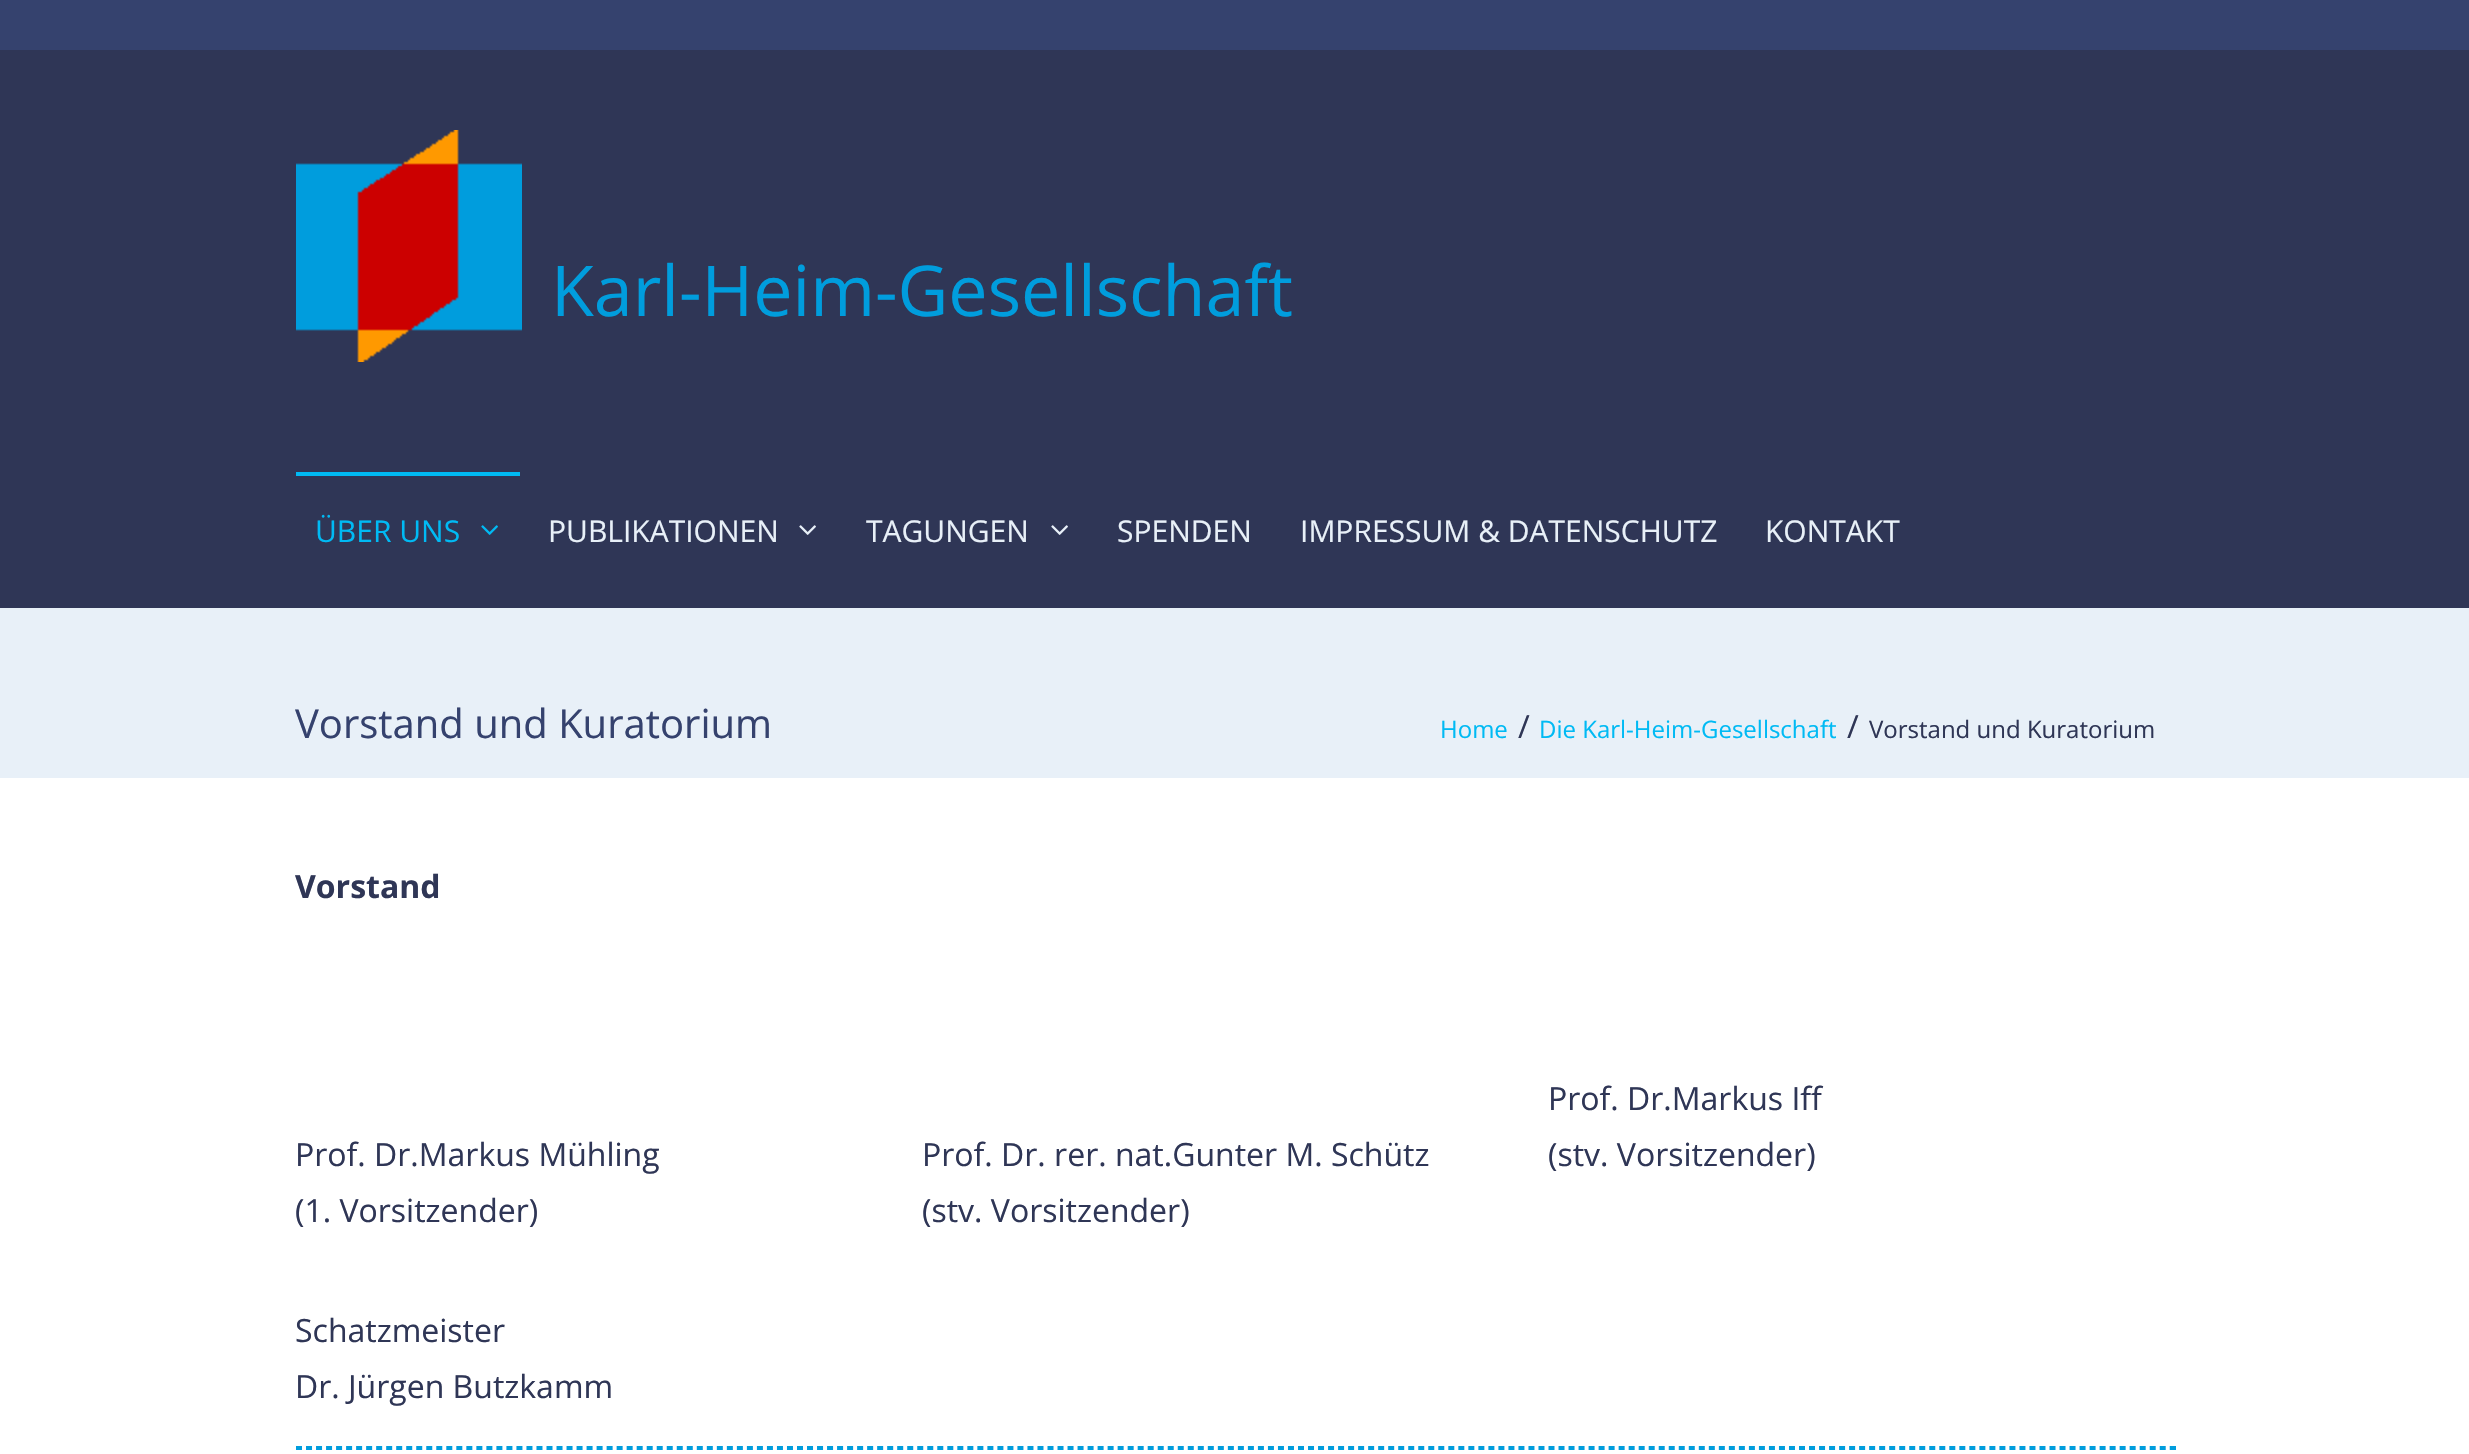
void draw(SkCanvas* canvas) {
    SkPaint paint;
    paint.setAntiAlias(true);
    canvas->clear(0xFFFFFFFF);
    paint.setColor(0xFF35426E);
    canvas->drawRect(SkRect::MakeXYWH(0, 0, 2469, 50), paint);
    paint.setColor(0xFF2F3656);
    canvas->drawRect(SkRect::MakeXYWH(0, 50, 2469, 558), paint);
    canvas->drawImageRect(SkImages::DeferredFromEncodedData(SkData::MakeFromFileName("img1.png")), SkRect::MakeXYWH(296, 130, 226, 232), SkSamplingOptions());
    SkFont font1(fontMgr->matchFamilyStyle("Open Sans", SkFontStyle::Normal()), 70);
    font1.setSubpixel(true);
    paint.setColor(0xFF009DDD);
    canvas->drawString("Karl-Heim-Gesellschaft", 551, 316, font1, paint);
    paint.setColor(0xFF00BAF4);
    canvas->drawRect(SkRect::MakeXYWH(296, 472, 224, 4), paint);
    SkFont font2(fontMgr->matchFamilyStyle("Open Sans", SkFontStyle::Normal()), 30);
    font2.setSubpixel(true);
    canvas->drawString("ÜBER UNS", 315, 542, font2, paint);
    canvas->drawImageRect(SkImages::DeferredFromEncodedData(SkData::MakeFromFileName("img2.png")), SkRect::MakeXYWH(481, 525, 17, 10), SkSamplingOptions());
    paint.setColor(0xFFE8F0F8);
    canvas->drawString("PUBLIKATIONEN", 548, 542, font2, paint);
    canvas->drawImageRect(SkImages::DeferredFromEncodedData(SkData::MakeFromFileName("img3.png")), SkRect::MakeXYWH(799, 525, 17, 10), SkSamplingOptions());
    canvas->drawString("TAGUNGEN", 866, 542, font2, paint);
    canvas->drawImageRect(SkImages::DeferredFromEncodedData(SkData::MakeFromFileName("img3.png")), SkRect::MakeXYWH(1051, 525, 17, 10), SkSamplingOptions());
    canvas->drawString("SPENDEN", 1117, 542, font2, paint);
    canvas->drawString("IMPRESSUM & DATENSCHUTZ", 1300, 542, font2, paint);
    canvas->drawString("KONTAKT", 1765, 542, font2, paint);
    canvas->drawRect(SkRect::MakeXYWH(0, 608, 2469, 170), paint);
    SkFont font3(fontMgr->matchFamilyStyle("Open Sans", SkFontStyle::Normal()), 40);
    font3.setSubpixel(true);
    paint.setColor(0xFF35426E);
    canvas->drawString("Vorstand und Kuratorium", 295, 738, font3, paint);
    SkFont font4(fontMgr->matchFamilyStyle("Open Sans", SkFontStyle::Normal()), 24);
    font4.setSubpixel(true);
    paint.setColor(0xFF00BAF4);
    canvas->drawString("Home", 1440, 738, font4, paint);
    SkFont font5(fontMgr->matchFamilyStyle("Open Sans", SkFontStyle::Normal()), 32);
    font5.setSubpixel(true);
    paint.setColor(0xFF2F3656);
    canvas->drawString("/", 1518, 738, font5, paint);
    paint.setColor(0xFF00BAF4);
    canvas->drawString("Die Karl-Heim-Gesellschaft", 1539, 738, font4, paint);
    paint.setColor(0xFF2F3656);
    canvas->drawString("/", 1847, 738, font5, paint);
    canvas->drawString("Vorstand und Kuratorium", 1869, 738, font4, paint);
    SkFont font6(fontMgr->matchFamilyStyle("Open Sans", SkFontStyle::Bold()), 32);
    font6.setSubpixel(true);
    canvas->drawString("Vorstand", 295, 898, font6, paint);
    canvas->drawString("Prof. Dr.Markus Iff", 1548, 1110, font5, paint);
    canvas->drawString("(stv. Vorsitzender)", 1548, 1166, font5, paint);
    canvas->drawString("Prof. Dr.Markus Mühling", 295, 1166, font5, paint);
    canvas->drawString("(1. Vorsitzender)", 295, 1222, font5, paint);
    canvas->drawString("Prof. Dr. rer. nat.Gunter M. Schütz", 922, 1166, font5, paint);
    canvas->drawString("(stv. Vorsitzender)", 922, 1222, font5, paint);
    canvas->drawString("Schatzmeister", 295, 1342, font5, paint);
    canvas->drawString("Dr. Jürgen Butzkamm", 295, 1398, font5, paint);
    paint.setStyle(SkPaint::kStroke_Style);
    paint.setStrokeWidth(2);
    paint.setColor(0xFF009DDD);
    paint.setPathEffect(SkDashPathEffect::Make({{6, 4.02f}}, 0));
    canvas->drawPath(SkPathBuilder().moveTo(296, 1447).lineTo(2176, 1447).detach(), paint);
    paint.setPathEffect(nullptr);
    paint.setStyle(SkPaint::kFill_Style);
    canvas->drawRect(SkRect::MakeXYWH(2174, 1446, 2, 4), paint);
    paint.setStyle(SkPaint::kStroke_Style);
    paint.setPathEffect(SkDashPathEffect::Make({{6, 4.02f}}, 0));
    canvas->drawPath(SkPathBuilder().moveTo(296, 1449).lineTo(2176, 1449).detach(), paint);
    paint.setPathEffect(nullptr);
}
